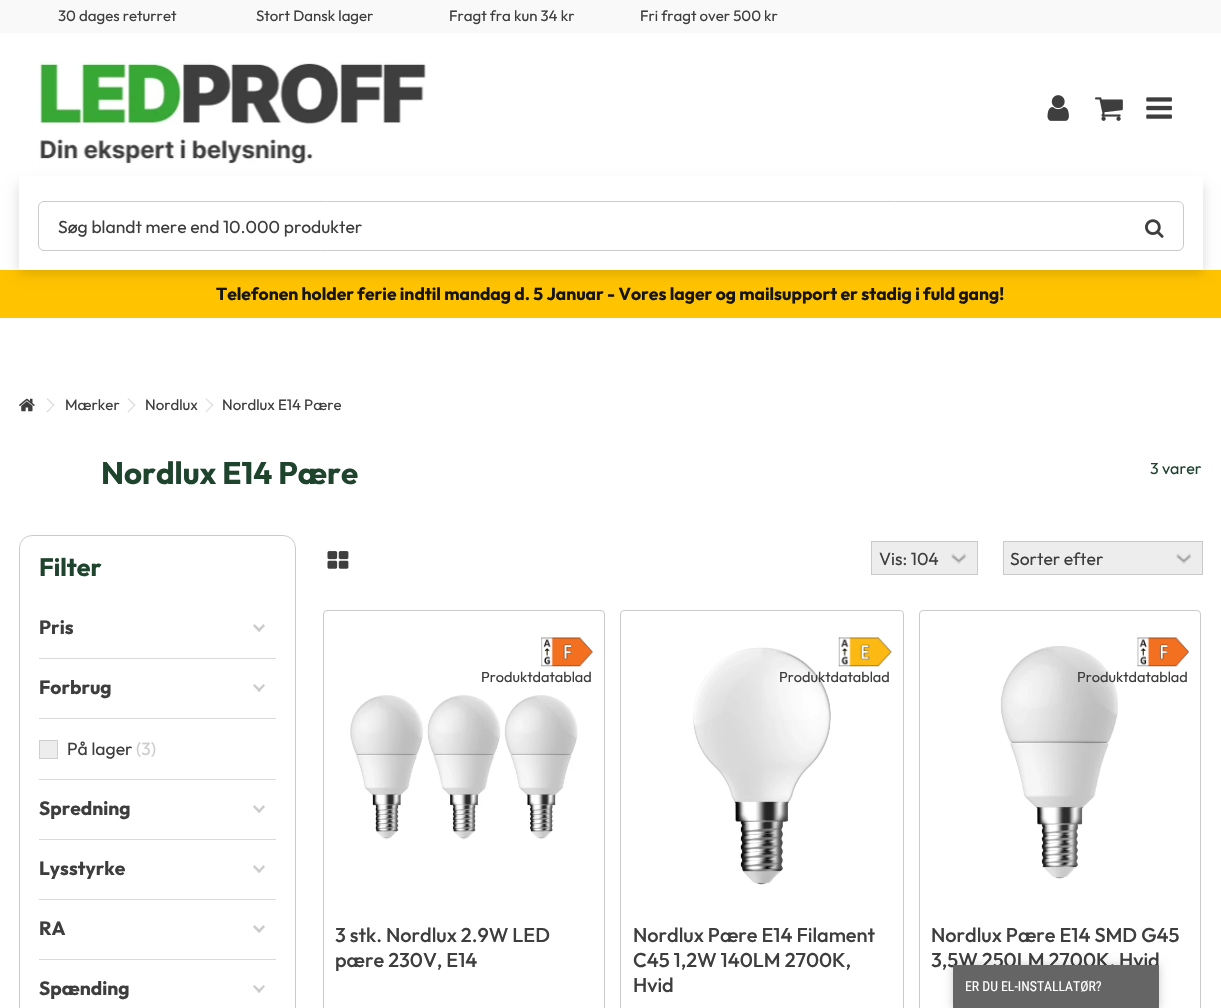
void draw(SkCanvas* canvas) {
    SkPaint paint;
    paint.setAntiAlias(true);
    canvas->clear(0xFFFFFFFF);
    paint.setColor(0xFFF9F9F9);
    canvas->drawRect(SkRect::MakeXYWH(0, 0, 1221, 33), paint);
    SkFont font1(fontMgr->matchFamilyStyle("Outfit", SkFontStyle::Normal()), 15);
    font1.setSubpixel(true);
    paint.setColor(0xFF3E3E3E);
    canvas->drawString("30 dages returret", 58, 21, font1, paint);
    canvas->drawString("Stort Dansk lager", 256, 21, font1, paint);
    canvas->drawString("Fragt fra kun 34 kr", 449, 21, font1, paint);
    canvas->drawString("Fri fragt over 500 kr", 640, 21, font1, paint);
    canvas->drawImageRect(SkImages::DeferredFromEncodedData(SkData::MakeFromFileName("img1.png")), SkRect::MakeXYWH(38, 61, 388, 103), SkSamplingOptions());
    canvas->drawImageRect(SkImages::DeferredFromEncodedData(SkData::MakeFromFileName("img2.png")), SkRect::MakeXYWH(1047, 95, 22, 26), SkSamplingOptions());
    canvas->drawImageRect(SkImages::DeferredFromEncodedData(SkData::MakeFromFileName("img3.png")), SkRect::MakeXYWH(1095, 97, 28, 24), SkSamplingOptions());
    canvas->drawImageRect(SkImages::DeferredFromEncodedData(SkData::MakeFromFileName("img4.png")), SkRect::MakeXYWH(1146, 97, 26, 22), SkSamplingOptions());
    paint.setColor(0xFFFFC300);
    canvas->drawRect(SkRect::MakeXYWH(0, 270, 1221, 48), paint);
    paint.setColor(0x26000000);
    paint.setMaskFilter(SkMaskFilter::MakeBlur(kNormal_SkBlurStyle, 6));
    canvas->drawRect(SkRect::MakeXYWH(19, 185, 1184, 88), paint);
    paint.setMaskFilter(nullptr);
    paint.setColor(0xFFFFFFFF);
    canvas->drawRect(SkRect::MakeXYWH(19, 176, 1184, 94), paint);
    paint.setStyle(SkPaint::kStroke_Style);
    paint.setStrokeWidth(1);
    paint.setColor(0xFFCACACA);
    canvas->drawRoundRect(SkRect::MakeXYWH(38.5f, 201.5f, 1145, 49), 5.5f, 5.5f, paint);
    SkFont font2(fontMgr->matchFamilyStyle("Outfit", SkFontStyle::Normal()), 17.5f);
    font2.setSubpixel(true);
    paint.setStyle(SkPaint::kFill_Style);
    paint.setColor(0xFF3E3E3E);
    canvas->drawString("Søg blandt mere end 10.000 produkter", 58, 233, font2, paint);
    canvas->drawImageRect(SkImages::DeferredFromEncodedData(SkData::MakeFromFileName("img5.png")), SkRect::MakeXYWH(1145, 219, 19, 19), SkSamplingOptions());
    SkFont font3(fontMgr->matchFamilyStyle("Outfit", SkFontStyle::Bold()), 17.5f);
    font3.setSubpixel(true);
    paint.setColor(0xFF151515);
    canvas->drawString("Telefonen holder ferie indtil mandag d. 5 Januar - Vores lager og mailsupport er stadig i fuld gang!", 216, 300, font3, paint);
    canvas->drawImageRect(SkImages::DeferredFromEncodedData(SkData::MakeFromFileName("img6.png")), SkRect::MakeXYWH(19, 398, 16, 14), SkSamplingOptions());
    paint.setColor(0xFFDDDDDD);
    canvas->drawPath(SkPathBuilder().moveTo(47.5f, 398).lineTo(54.5f, 405).lineTo(53.5f, 406).lineTo(46.5f, 399).close().detach(), paint);
    canvas->drawPath(SkPathBuilder().moveTo(53.5f, 404.5f).lineTo(54.5f, 405).lineTo(47.5f, 412.5f).lineTo(46.5f, 411.5f).close().detach(), paint);
    paint.setColor(0xFF3E3E3E);
    canvas->drawString("Mærker", 65, 410, font1, paint);
    paint.setColor(0xFFDDDDDD);
    canvas->drawPath(SkPathBuilder().moveTo(128.5f, 398).lineTo(135.5f, 405).lineTo(134.5f, 406).lineTo(127.5f, 399).close().detach(), paint);
    canvas->drawPath(SkPathBuilder().moveTo(134.5f, 404.5f).lineTo(135.5f, 405).lineTo(128.5f, 412.5f).lineTo(127.5f, 411.5f).close().detach(), paint);
    paint.setColor(0xFF3E3E3E);
    canvas->drawString("Nordlux", 145, 410, font1, paint);
    paint.setColor(0xFFDDDDDD);
    canvas->drawPath(SkPathBuilder().moveTo(206, 398).lineTo(213.5f, 405).lineTo(212.5f, 406).lineTo(205.5f, 399).close().detach(), paint);
    canvas->drawPath(SkPathBuilder().moveTo(212.5f, 404.5f).lineTo(213.5f, 405).lineTo(206, 412.5f).lineTo(205.5f, 411.5f).close().detach(), paint);
    paint.setColor(0xFF3E3E3E);
    canvas->drawString("Nordlux E14 Pære", 222, 410, font1, paint);
    paint.setStyle(SkPaint::kStroke_Style);
    paint.setColor(0xFFCACACA);
    canvas->drawRoundRect(SkRect::MakeXYWH(19.5f, 535.5f, 276, 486), 12.5f, 12.5f, paint);
    SkFont font4(fontMgr->matchFamilyStyle("Outfit", SkFontStyle::Bold()), 25);
    font4.setSubpixel(true);
    paint.setStyle(SkPaint::kFill_Style);
    paint.setColor(0xFF1F442E);
    canvas->drawString("Filter", 39, 576, font4, paint);
    paint.setColor(0xFFDADADA);
    canvas->drawRect(SkRect::MakeXYWH(39, 658, 237, 1), paint);
    SkFont font5(fontMgr->matchFamilyStyle("Outfit", SkFontStyle::Bold()), 19.25f);
    font5.setSubpixel(true);
    paint.setColor(0xFF3E3E3E);
    canvas->drawString("Pris", 39, 634, font5, paint);
    paint.setColor(0xFFCCCCCC);
    canvas->drawPath(SkPathBuilder().moveTo(263.5f, 624).lineTo(265, 626).lineTo(259, 632).lineTo(257.5f, 630).close().detach(), paint);
    canvas->drawPath(SkPathBuilder().moveTo(254.5f, 624).lineTo(261, 630).lineTo(259, 632).lineTo(253, 626).close().detach(), paint);
    paint.setColor(0xFFDADADA);
    canvas->drawRect(SkRect::MakeXYWH(39, 718, 237, 1), paint);
    paint.setColor(0xFF3E3E3E);
    canvas->drawString("Forbrug", 39, 694, font5, paint);
    paint.setColor(0xFFCCCCCC);
    canvas->drawPath(SkPathBuilder().moveTo(263.5f, 684).lineTo(265, 685.5f).lineTo(259, 692).lineTo(257.5f, 690).close().detach(), paint);
    canvas->drawPath(SkPathBuilder().moveTo(254.5f, 684).lineTo(261, 690).lineTo(259, 692).lineTo(253, 685.5f).close().detach(), paint);
    paint.setColor(0xFFDADADA);
    canvas->drawRect(SkRect::MakeXYWH(39, 779, 237, 1), paint);
    paint.setColor(0xFFEDEDED);
    canvas->drawRect(SkRect::MakeXYWH(39.5f, 740.5f, 18, 18), paint);
    paint.setStyle(SkPaint::kStroke_Style);
    paint.setColor(0xFFCECECE);
    canvas->drawRect(SkRect::MakeXYWH(39.5f, 740.5f, 18, 18), paint);
    paint.setStyle(SkPaint::kFill_Style);
    paint.setColor(0xFF3E3E3E);
    canvas->drawString("På lager", 67, 755, font2, paint);
    paint.setColor(0xFFCCCCCC);
    canvas->drawString("(3)", 136, 755, font2, paint);
    paint.setColor(0xFFDADADA);
    canvas->drawRect(SkRect::MakeXYWH(39, 839, 237, 1), paint);
    paint.setColor(0xFF3E3E3E);
    canvas->drawString("Spredning", 39, 815, font5, paint);
    paint.setColor(0xFFCCCCCC);
    canvas->drawPath(SkPathBuilder().moveTo(263.5f, 805).lineTo(265, 807).lineTo(259, 813).lineTo(257.5f, 811.5f).close().detach(), paint);
    canvas->drawPath(SkPathBuilder().moveTo(254.5f, 805).lineTo(261, 811.5f).lineTo(259, 813).lineTo(253, 807).close().detach(), paint);
    paint.setColor(0xFFDADADA);
    canvas->drawRect(SkRect::MakeXYWH(39, 899, 237, 1), paint);
    paint.setColor(0xFF3E3E3E);
    canvas->drawString("Lysstyrke", 39, 875, font5, paint);
    paint.setColor(0xFFCCCCCC);
    canvas->drawPath(SkPathBuilder().moveTo(263.5f, 865).lineTo(265, 867).lineTo(259, 873).lineTo(257.5f, 871.5f).close().detach(), paint);
    canvas->drawPath(SkPathBuilder().moveTo(254.5f, 865).lineTo(261, 871.5f).lineTo(259, 873).lineTo(253, 867).close().detach(), paint);
    paint.setColor(0xFFDADADA);
    canvas->drawRect(SkRect::MakeXYWH(39, 959, 237, 1), paint);
    paint.setColor(0xFF3E3E3E);
    canvas->drawString("RA", 39, 935, font5, paint);
    paint.setColor(0xFFCCCCCC);
    canvas->drawPath(SkPathBuilder().moveTo(263.5f, 925).lineTo(265, 927).lineTo(259, 933).lineTo(257.5f, 931).close().detach(), paint);
    canvas->drawPath(SkPathBuilder().moveTo(254.5f, 925).lineTo(261, 931).lineTo(259, 933).lineTo(253, 927).close().detach(), paint);
    paint.setColor(0xFF3E3E3E);
    canvas->drawString("Spænding", 39, 995, font5, paint);
    paint.setColor(0xFFCCCCCC);
    canvas->drawPath(SkPathBuilder().moveTo(263.5f, 985).lineTo(265, 986.5f).lineTo(259, 993).lineTo(257.5f, 991).close().detach(), paint);
    canvas->drawPath(SkPathBuilder().moveTo(254.5f, 985).lineTo(261, 991).lineTo(259, 993).lineTo(253, 986.5f).close().detach(), paint);
    SkFont font6(fontMgr->matchFamilyStyle("Outfit", SkFontStyle::Bold()), 31.25f);
    font6.setSubpixel(true);
    paint.setColor(0xFF1F442E);
    canvas->drawString("Nordlux E14 Pære", 101, 484, font6, paint);
    SkFont font7(fontMgr->matchFamilyStyle("Outfit", SkFontStyle::Normal()), 16);
    font7.setSubpixel(true);
    canvas->drawString("3 varer", 1150, 474, font7, paint);
    canvas->drawImageRect(SkImages::DeferredFromEncodedData(SkData::MakeFromFileName("img7.png")), SkRect::MakeXYWH(327, 551, 22, 18), SkSamplingOptions());
    paint.setColor(0xFFEDEDED);
    canvas->drawRect(SkRect::MakeXYWH(872, 542, 105, 32), paint);
    canvas->drawImageRect(SkImages::DeferredFromEncodedData(SkData::MakeFromFileName("img8.png")), SkRect::MakeXYWH(951, 553, 16, 11), SkSamplingOptions());
    paint.setStyle(SkPaint::kStroke_Style);
    paint.setColor(0xFFCACACA);
    canvas->drawRect(SkRect::MakeXYWH(871.5f, 541.5f, 106, 33), paint);
    paint.setStyle(SkPaint::kFill_Style);
    paint.setColor(0xFF3E3E3E);
    canvas->drawString("Vis: 104", 879, 565, font2, paint);
    paint.setColor(0xFFEDEDED);
    canvas->drawRect(SkRect::MakeXYWH(1004, 542, 198, 32), paint);
    canvas->drawImageRect(SkImages::DeferredFromEncodedData(SkData::MakeFromFileName("img8.png")), SkRect::MakeXYWH(1176, 553, 16, 11), SkSamplingOptions());
    paint.setStyle(SkPaint::kStroke_Style);
    paint.setColor(0xFFCACACA);
    canvas->drawRect(SkRect::MakeXYWH(1003.5f, 541.5f, 199, 33), paint);
    paint.setStyle(SkPaint::kFill_Style);
    paint.setColor(0xFF3E3E3E);
    canvas->drawString("Sorter efter", 1010, 565, font2, paint);
    paint.setStyle(SkPaint::kStroke_Style);
    paint.setColor(0xFFCACACA);
    canvas->drawRoundRect(SkRect::MakeXYWH(323.5f, 610.5f, 281, 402), 3.5f, 3.5f, paint);
    canvas->drawImageRect(SkImages::DeferredFromEncodedData(SkData::MakeFromFileName("img9.png")), SkRect::MakeXYWH(541, 637, 52, 30), SkSamplingOptions());
    SkFont font8(fontMgr->matchFamilyStyle("Outfit", SkFontStyle::Normal()), 14.5f);
    font8.setSubpixel(true);
    paint.setStyle(SkPaint::kFill_Style);
    paint.setColor(0xFF3E3E3E);
    canvas->drawString("Produktdatablad", 481, 682, font8, paint);
    canvas->drawImageRect(SkImages::DeferredFromEncodedData(SkData::MakeFromFileName("img10.png")), SkRect::MakeXYWH(350, 695, 228, 145), SkSamplingOptions());
    SkFont font9(fontMgr->matchFamilyStyle("Outfit", SkFontStyle(500, SkFontStyle::kNormal_Width, SkFontStyle::kUpright_Slant)), 20);
    font9.setSubpixel(true);
    canvas->drawString("3 stk. Nordlux 2.9W LED", 335, 942, font9, paint);
    canvas->drawString("pære 230V, E14", 335, 967, font9, paint);
    paint.setStyle(SkPaint::kStroke_Style);
    paint.setColor(0xFFCACACA);
    canvas->drawRoundRect(SkRect::MakeXYWH(620.5f, 610.5f, 283, 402), 3.5f, 3.5f, paint);
    canvas->drawImageRect(SkImages::DeferredFromEncodedData(SkData::MakeFromFileName("img11.png")), SkRect::MakeXYWH(693, 647, 138, 238), SkSamplingOptions());
    canvas->drawImageRect(SkImages::DeferredFromEncodedData(SkData::MakeFromFileName("img12.png")), SkRect::MakeXYWH(838, 637, 54, 30), SkSamplingOptions());
    paint.setStyle(SkPaint::kFill_Style);
    paint.setColor(0xFF3E3E3E);
    canvas->drawString("Produktdatablad", 779, 682, font8, paint);
    canvas->drawString("Nordlux Pære E14 Filament", 633, 942, font9, paint);
    canvas->drawString("C45 1,2W 140LM 2700K,", 633, 967, font9, paint);
    canvas->drawString("Hvid", 633, 992, font9, paint);
    paint.setStyle(SkPaint::kStroke_Style);
    paint.setColor(0xFFCACACA);
    canvas->drawRoundRect(SkRect::MakeXYWH(919.5f, 610.5f, 281, 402), 3.5f, 3.5f, paint);
    canvas->drawImageRect(SkImages::DeferredFromEncodedData(SkData::MakeFromFileName("img13.png")), SkRect::MakeXYWH(999, 646, 119, 233), SkSamplingOptions());
    canvas->drawImageRect(SkImages::DeferredFromEncodedData(SkData::MakeFromFileName("img14.png")), SkRect::MakeXYWH(1137, 637, 52, 30), SkSamplingOptions());
    paint.setStyle(SkPaint::kFill_Style);
    paint.setColor(0xFF3E3E3E);
    canvas->drawString("Produktdatablad", 1077, 682, font8, paint);
    canvas->drawString("Nordlux Pære E14 SMD G45", 931, 942, font9, paint);
    canvas->drawString("3,5W 250LM 2700K, Hvid", 931, 967, font9, paint);
    paint.setColor(0x33000000);
    paint.setMaskFilter(SkMaskFilter::MakeBlur(kNormal_SkBlurStyle, 4.5f));
    canvas->drawRect(SkRect::MakeXYWH(953, 965, 206, 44), paint);
    paint.setMaskFilter(nullptr);
    paint.setColor(0xFF656565);
    canvas->drawRect(SkRect::MakeXYWH(953, 965, 206, 43), paint);
    SkFont font10(fontMgr->matchFamilyStyle("Roboto Condensed", SkFontStyle::Normal()), 13.75f);
    font10.setSubpixel(true);
    paint.setColor(0xFFFFFFFF);
    canvas->drawString("ER DU EL-INSTALLATØR?", 965, 991, font10, paint);
}
